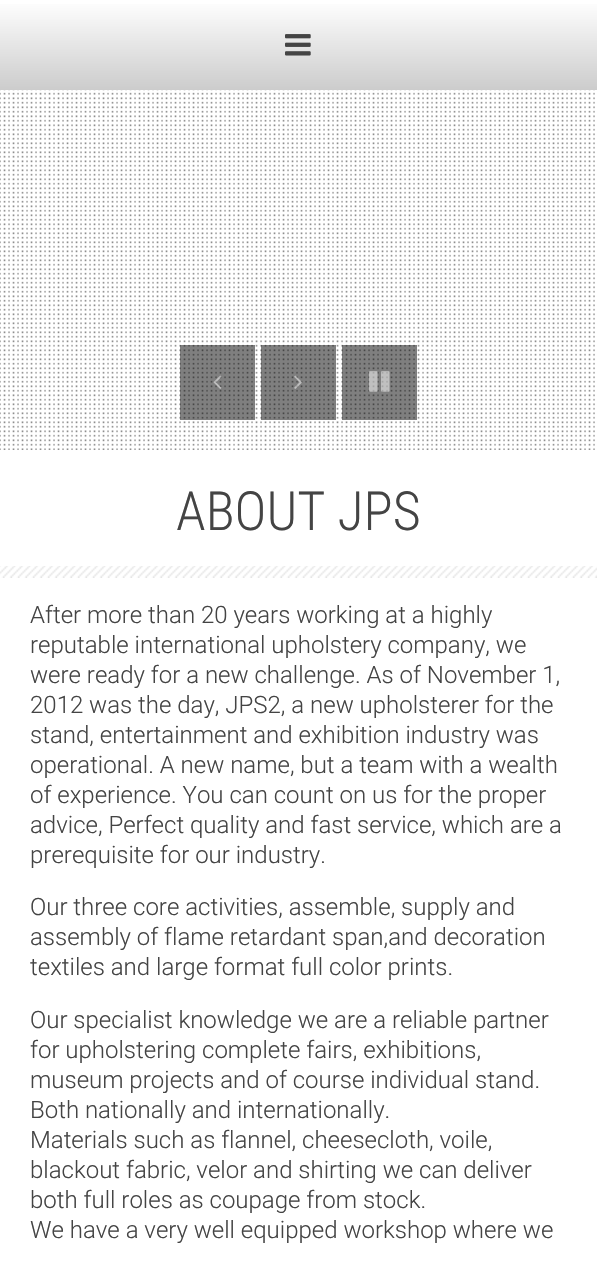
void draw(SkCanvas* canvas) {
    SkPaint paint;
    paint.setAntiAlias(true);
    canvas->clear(0xFFFFFFFF);
    {
        const SkColor colors[] = {0xFFFFFFFF, 0xFFCCCCCC};
        const float stops[] = {0, 1};
        const SkPoint ends[] = {{299, 0}, {299, 90}};
        paint.setShader(SkGradientShader::MakeLinear(ends, colors, stops, 2, SkTileMode::kClamp));
        paint.setAlpha(255);
    }
    canvas->drawRect(SkRect::MakeXYWH(0, 4, 597, 86), paint);
    canvas->drawImageRect(SkImages::DeferredFromEncodedData(SkData::MakeFromFileName("img1.png")), SkRect::MakeXYWH(285, 34, 26, 22), SkSamplingOptions());
    canvas->drawImageRect(SkImages::DeferredFromEncodedData(SkData::MakeFromFileName("img2.png")), SkRect::MakeXYWH(0, 90, 595, 360), SkSamplingOptions());
    paint.setShader(nullptr);
    paint.setColor(0x80000000);
    canvas->drawRect(SkRect::MakeXYWH(180, 345, 75, 75), paint);
    canvas->drawImageRect(SkImages::DeferredFromEncodedData(SkData::MakeFromFileName("img3.png")), SkRect::MakeXYWH(213, 375, 9, 14), SkSamplingOptions());
    canvas->drawRect(SkRect::MakeXYWH(261, 345, 75, 75), paint);
    canvas->drawImageRect(SkImages::DeferredFromEncodedData(SkData::MakeFromFileName("img4.png")), SkRect::MakeXYWH(294, 375, 8, 14), SkSamplingOptions());
    canvas->drawRect(SkRect::MakeXYWH(342, 345, 75, 75), paint);
    canvas->drawImageRect(SkImages::DeferredFromEncodedData(SkData::MakeFromFileName("img5.png")), SkRect::MakeXYWH(369, 371, 21, 21), SkSamplingOptions());
    SkFont font1(fontMgr->matchFamilyStyle("Roboto Condensed", SkFontStyle(300, SkFontStyle::kNormal_Width, SkFontStyle::kUpright_Slant)), 54);
    font1.setSubpixel(true);
    paint.setColor(0xFF444444);
    canvas->drawString("ABOUT JPS", 176, 530, font1, paint);
    canvas->drawImageRect(SkImages::DeferredFromEncodedData(SkData::MakeFromFileName("img6.png")), SkRect::MakeXYWH(0, 566, 597, 12), SkSamplingOptions());
    SkFont font2(fontMgr->matchFamilyStyle("Roboto", SkFontStyle(300, SkFontStyle::kNormal_Width, SkFontStyle::kUpright_Slant)), 24);
    font2.setSubpixel(true);
    canvas->drawString("After more than 20 years working at a highly", 30, 623, font2, paint);
    canvas->drawString("reputable international upholstery company, we", 30, 653, font2, paint);
    canvas->drawString("were ready for a new challenge. As of November 1,", 30, 683, font2, paint);
    canvas->drawString("2012 was the day, JPS2, a new upholsterer for the", 30, 713, font2, paint);
    canvas->drawString("stand, entertainment and exhibition industry was", 30, 743, font2, paint);
    canvas->drawString("operational. A new name, but a team with a wealth", 30, 773, font2, paint);
    canvas->drawString("of experience. You can count on us for the proper", 30, 803, font2, paint);
    canvas->drawString("advice, Perfect quality and fast service, which are a", 30, 833, font2, paint);
    canvas->drawString("prerequisite for our industry.", 30, 863, font2, paint);
    canvas->drawString("Our three core activities, assemble, supply and", 30, 915, font2, paint);
    canvas->drawString("assembly of flame retardant span,and decoration", 30, 945, font2, paint);
    canvas->drawString("textiles and large format full color prints.", 30, 975, font2, paint);
    canvas->drawString("Our specialist knowledge we are a reliable partner", 30, 1028, font2, paint);
    canvas->drawString("for upholstering complete fairs, exhibitions,", 30, 1058, font2, paint);
    canvas->drawString("museum projects and of course individual stand.", 30, 1088, font2, paint);
    canvas->drawString("Both nationally and internationally.", 30, 1118, font2, paint);
    canvas->drawString("Materials such as flannel, cheesecloth, voile,", 30, 1148, font2, paint);
    canvas->drawString("blackout fabric, velor and shirting we can deliver", 30, 1178, font2, paint);
    canvas->drawString("both full roles as coupage from stock.", 30, 1208, font2, paint);
    canvas->drawString("We have a very well equipped workshop where we", 30, 1238, font2, paint);
}
